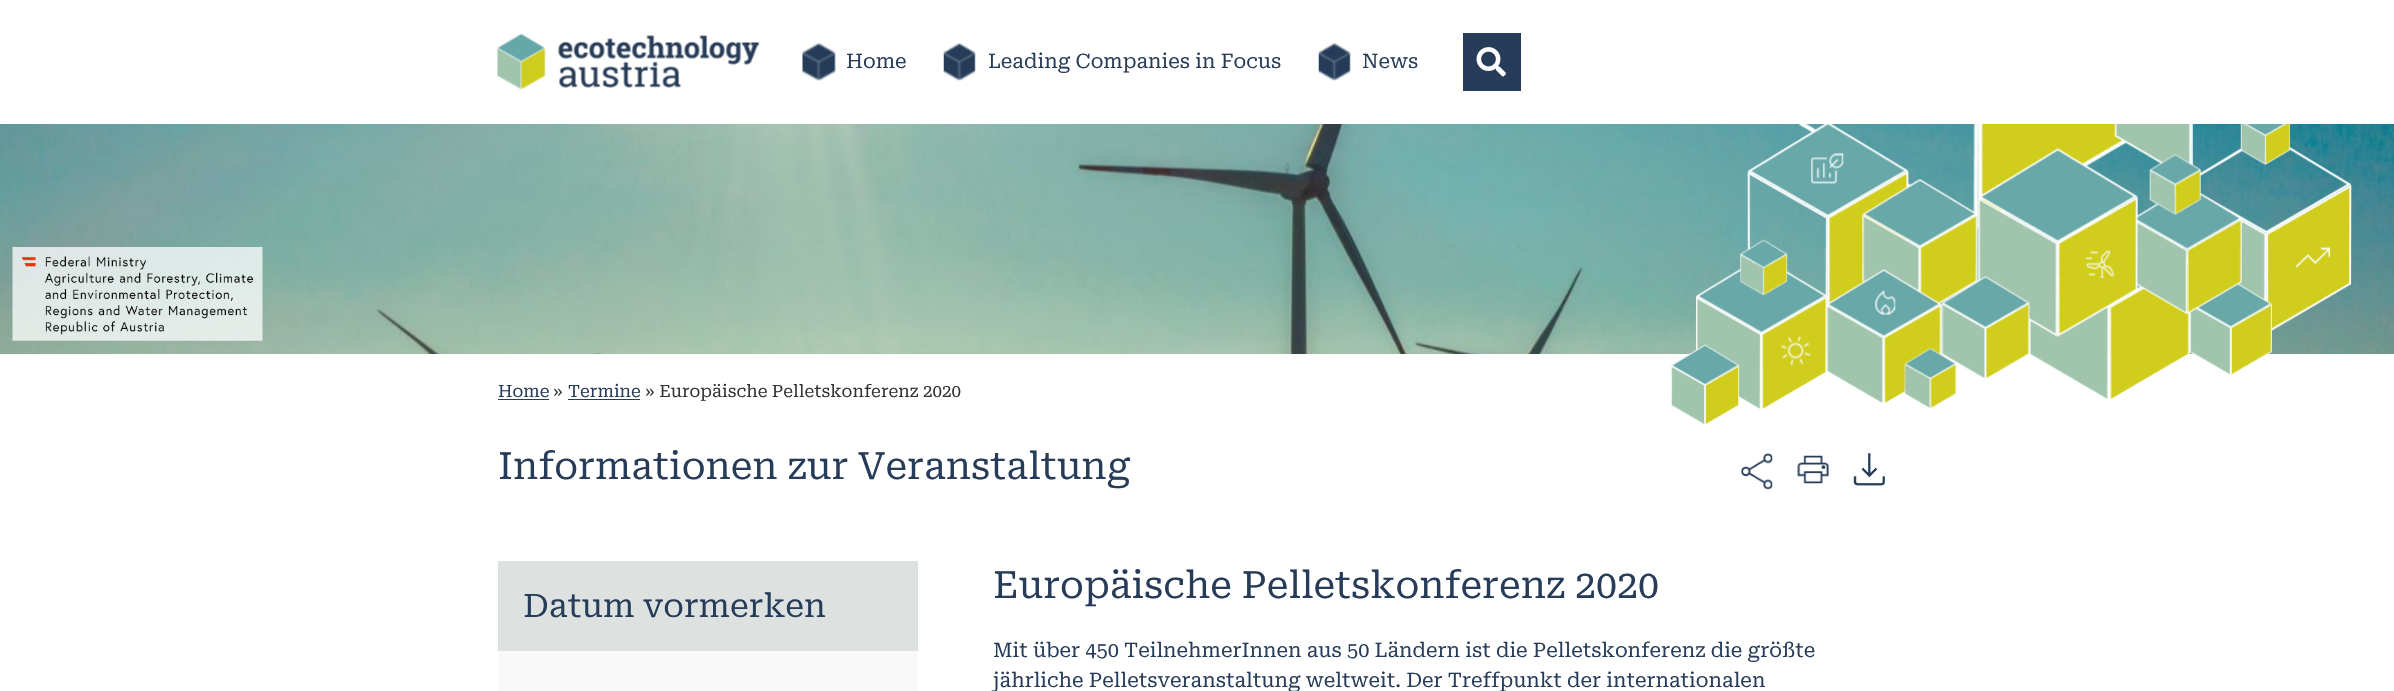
void draw(SkCanvas* canvas) {
    SkPaint paint;
    paint.setAntiAlias(true);
    canvas->clear(0xFFFFFFFF);
    canvas->drawImageRect(SkImages::DeferredFromEncodedData(SkData::MakeFromFileName("img1.png")), SkRect::MakeXYWH(497, 33, 263, 57), SkSamplingOptions());
    canvas->drawImageRect(SkImages::DeferredFromEncodedData(SkData::MakeFromFileName("img2.png")), SkRect::MakeXYWH(802, 43, 34, 38), SkSamplingOptions());
    SkFont font1(fontMgr->matchFamilyStyle("Roboto Serif", SkFontStyle::Normal()), 20);
    font1.setSubpixel(true);
    paint.setColor(0xFF273C59);
    canvas->drawString("Home", 846, 68, font1, paint);
    canvas->drawImageRect(SkImages::DeferredFromEncodedData(SkData::MakeFromFileName("img3.png")), SkRect::MakeXYWH(943, 43, 33, 38), SkSamplingOptions());
    canvas->drawString("Leading Companies in Focus", 988, 68, font1, paint);
    canvas->drawImageRect(SkImages::DeferredFromEncodedData(SkData::MakeFromFileName("img4.png")), SkRect::MakeXYWH(1318, 43, 33, 38), SkSamplingOptions());
    canvas->drawString("News", 1362, 68, font1, paint);
    canvas->drawRect(SkRect::MakeXYWH(1463, 33, 58, 58), paint);
    canvas->drawImageRect(SkImages::DeferredFromEncodedData(SkData::MakeFromFileName("img5.png")), SkRect::MakeXYWH(1476, 47, 30, 30), SkSamplingOptions());
    canvas->drawImageRect(SkImages::DeferredFromEncodedData(SkData::MakeFromFileName("img6.png")), SkRect::MakeXYWH(0, 124, 2394, 230), SkSamplingOptions());
    canvas->drawImageRect(SkImages::DeferredFromEncodedData(SkData::MakeFromFileName("img7.png")), SkRect::MakeXYWH(12, 247, 251, 94), SkSamplingOptions());
    canvas->drawImageRect(SkImages::DeferredFromEncodedData(SkData::MakeFromFileName("img8.png")), SkRect::MakeXYWH(1671, 124, 681, 301), SkSamplingOptions());
    SkFont font2(fontMgr->matchFamilyStyle("Roboto Serif", SkFontStyle::Normal()), 17);
    font2.setSubpixel(true);
    canvas->drawString("Home", 498, 397, font2, paint);
    canvas->drawRect(SkRect::MakeXYWH(498, 399, 51, 1), paint);
    paint.setColor(0xFF333333);
    canvas->drawString("»", 553, 397, font2, paint);
    paint.setColor(0xFF273C59);
    canvas->drawString("Termine", 568, 397, font2, paint);
    canvas->drawRect(SkRect::MakeXYWH(568, 399, 72, 1), paint);
    paint.setColor(0xFF333333);
    canvas->drawString("» Europäische Pelletskonferenz 2020", 645, 397, font2, paint);
    SkFont font3(fontMgr->matchFamilyStyle("Roboto Serif", SkFontStyle::Normal()), 37.5f);
    font3.setSubpixel(true);
    paint.setColor(0xFF273C59);
    canvas->drawString("Informationen zur Veranstaltung", 498, 479, font3, paint);
    canvas->drawImageRect(SkImages::DeferredFromEncodedData(SkData::MakeFromFileName("img9.png")), SkRect::MakeXYWH(1741, 453, 32, 37), SkSamplingOptions());
    canvas->drawImageRect(SkImages::DeferredFromEncodedData(SkData::MakeFromFileName("img10.png")), SkRect::MakeXYWH(1797, 455, 32, 29), SkSamplingOptions());
    canvas->drawImageRect(SkImages::DeferredFromEncodedData(SkData::MakeFromFileName("img11.png")), SkRect::MakeXYWH(1853, 453, 32, 33), SkSamplingOptions());
    paint.setColor(0xFFF9F9FA);
    canvas->drawRect(SkRect::MakeXYWH(498, 651, 420, 40), paint);
    paint.setColor(0xFFDDE2E0);
    canvas->drawRect(SkRect::MakeXYWH(498, 561, 420, 90), paint);
    SkFont font4(fontMgr->matchFamilyStyle("Roboto Serif", SkFontStyle::Normal()), 32.5f);
    font4.setSubpixel(true);
    paint.setColor(0xFF273C59);
    canvas->drawString("Datum vormerken", 523, 617, font4, paint);
    canvas->drawString("Europäische Pelletskonferenz 2020", 993, 598, font3, paint);
    canvas->drawString("Mit über 450 TeilnehmerInnen aus 50 Ländern ist die Pelletskonferenz die größte", 993, 657, font1, paint);
    canvas->drawString("jährliche Pelletsveranstaltung weltweit. Der Treffpunkt der internationalen", 993, 687, font1, paint);
}
